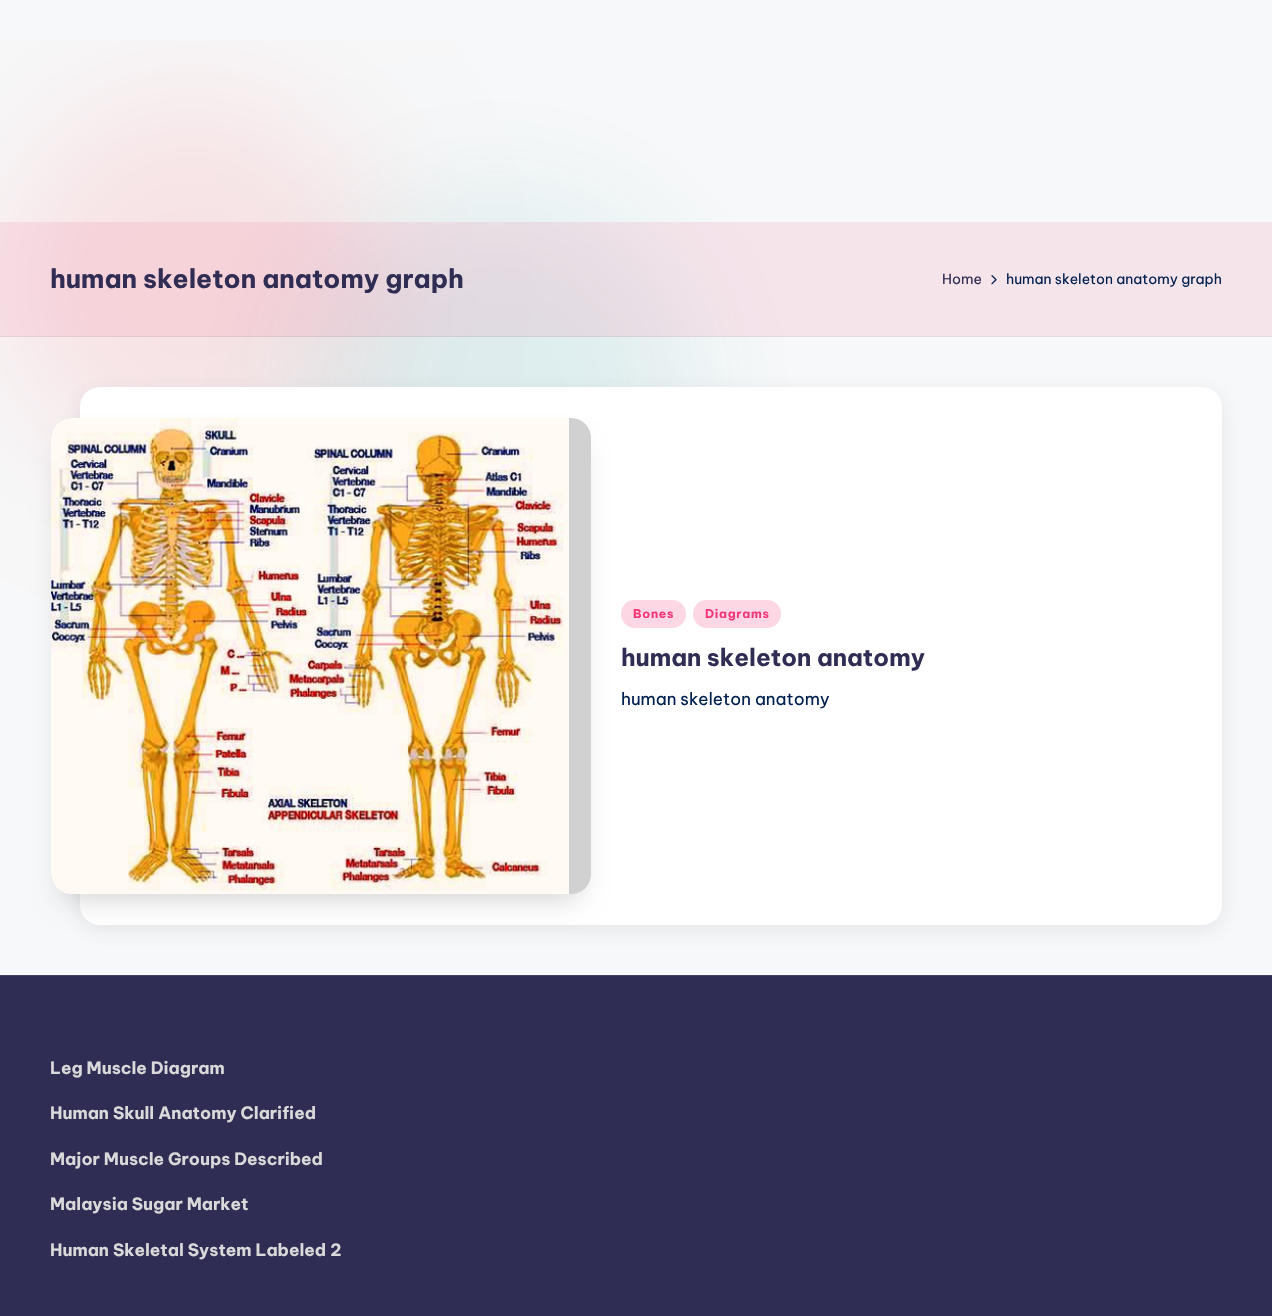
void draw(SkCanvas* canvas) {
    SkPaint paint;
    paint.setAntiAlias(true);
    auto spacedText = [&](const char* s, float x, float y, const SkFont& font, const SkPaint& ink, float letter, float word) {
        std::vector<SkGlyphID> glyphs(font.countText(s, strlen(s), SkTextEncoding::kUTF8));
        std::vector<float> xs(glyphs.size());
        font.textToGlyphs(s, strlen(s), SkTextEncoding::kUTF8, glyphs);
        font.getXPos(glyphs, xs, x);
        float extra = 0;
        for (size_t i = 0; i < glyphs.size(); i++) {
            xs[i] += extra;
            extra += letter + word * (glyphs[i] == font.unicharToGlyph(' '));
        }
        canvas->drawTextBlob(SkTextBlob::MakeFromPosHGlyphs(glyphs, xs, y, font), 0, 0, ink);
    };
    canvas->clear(0xFFF7F8F9);
    canvas->save();
    canvas->clipRect(SkRect::MakeXYWH(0, 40, 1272, 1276));
    paint.setColor(0xFFF7E3E5);
    paint.setMaskFilter(SkMaskFilter::MakeBlur(kNormal_SkBlurStyle, 64));
    canvas->drawRoundRect(SkRect::MakeXYWH(0, 90, 384, 384), 192, 192, paint);
    paint.setMaskFilter(nullptr);
    canvas->restore();
    paint.setColor(0x1A04868B);
    paint.setMaskFilter(SkMaskFilter::MakeBlur(kNormal_SkBlurStyle, 64));
    canvas->drawRoundRect(SkRect::MakeXYWH(304, 200, 384, 384), 192, 192, paint);
    paint.setMaskFilter(nullptr);
    paint.setColor(0x1AF43676);
    canvas->drawRect(SkRect::MakeXYWH(0, 222, 1272, 115), paint);
    paint.setColor(0x0F000000);
    canvas->drawRect(SkRect::MakeXYWH(0, 336, 1272, 1), paint);
    SkFont font1(fontMgr->matchFamilyStyle("Be Vietnam Pro", SkFontStyle::Bold()), 26);
    font1.setSubpixel(true);
    paint.setColor(0xFF302D55);
    canvas->drawString("human skeleton anatomy graph", 50, 288, font1, paint);
    SkFont font2(fontMgr->matchFamilyStyle("Be Vietnam Pro", SkFontStyle::Normal()), 14);
    font2.setSubpixel(true);
    canvas->drawString("Home", 942, 284, font2, paint);
    canvas->drawImageRect(SkImages::DeferredFromEncodedData(SkData::MakeFromFileName("img1.png")), SkRect::MakeXYWH(991, 275, 6, 10), SkSamplingOptions());
    paint.setColor(0xFF002050);
    canvas->drawString("human skeleton anatomy graph", 1006, 284, font2, paint);
    paint.setColor(0x1A454360);
    paint.setMaskFilter(SkMaskFilter::MakeBlur(kNormal_SkBlurStyle, 10));
    canvas->drawRoundRect(SkRect::MakeXYWH(80, 392, 1142, 538), 20, 20, paint);
    paint.setMaskFilter(nullptr);
    paint.setColor(0xFFFFFFFF);
    canvas->drawRoundRect(SkRect::MakeXYWH(80, 387, 1142, 538), 20, 20, paint);
    paint.setColor(0xFFFDD7E4);
    canvas->drawRoundRect(SkRect::MakeXYWH(621, 600, 65, 28), 14, 14, paint);
    paint.setColor(0x2E000000);
    paint.setMaskFilter(SkMaskFilter::MakeBlur(kNormal_SkBlurStyle, 14));
    canvas->drawRoundRect(SkRect::MakeXYWH(63, 446, 516, 452), 8, 8, paint);
    paint.setMaskFilter(nullptr);
    paint.setColor(0xFFD1D1D1);
    canvas->drawRoundRect(SkRect::MakeXYWH(51, 418, 540, 476), 20, 20, paint);
    canvas->drawPath(SkPathBuilder().moveTo(71, 418).lineTo(569, 418).lineTo(569, 894).lineTo(71, 894).cubicTo(60, 894, 51, 885, 51, 874).lineTo(51, 438).cubicTo(51, 427, 60, 418, 71, 418).close().detach(), paint);
    canvas->drawImageRect(SkImages::DeferredFromEncodedData(SkData::MakeFromFileName("img2.png")), SkRect::MakeXYWH(51, 418, 518, 476), SkSamplingOptions());
    SkFont font3(fontMgr->matchFamilyStyle("Be Vietnam Pro", SkFontStyle::Bold()), 12);
    font3.setSubpixel(true);
    paint.setColor(0xFFF43676);
    spacedText("Bones", 633, 618, font3, paint, 0.75f, 0);
    paint.setColor(0xFFFDD7E4);
    canvas->drawRoundRect(SkRect::MakeXYWH(693, 600, 88, 28), 14, 14, paint);
    paint.setColor(0xFFF43676);
    spacedText("Diagrams", 705, 618, font3, paint, 0.75f, 0);
    SkFont font4(fontMgr->matchFamilyStyle("Be Vietnam Pro", SkFontStyle::Bold()), 24);
    font4.setSubpixel(true);
    paint.setColor(0xFF302D55);
    canvas->drawString("human skeleton anatomy", 621, 666, font4, paint);
    SkFont font5(fontMgr->matchFamilyStyle("Be Vietnam Pro", SkFontStyle::Normal()), 17);
    font5.setSubpixel(true);
    paint.setColor(0xFF002050);
    canvas->drawString("human skeleton anatomy", 621, 705, font5, paint);
    paint.setColor(0xFF302D55);
    canvas->drawRect(SkRect::MakeXYWH(0, 976, 1272, 340), paint);
    paint.setColor(0xFF454266);
    canvas->drawRect(SkRect::MakeXYWH(0, 975, 1272, 1), paint);
    SkFont font6(fontMgr->matchFamilyStyle("Be Vietnam Pro", SkFontStyle::Bold()), 17);
    font6.setSubpixel(true);
    paint.setColor(0xFFD9D9D9);
    canvas->drawString("Leg Muscle Diagram", 50, 1074, font6, paint);
    canvas->drawString("Human Skull Anatomy Clarified", 50, 1119, font6, paint);
    canvas->drawString("Major Muscle Groups Described", 50, 1165, font6, paint);
    canvas->drawString("Malaysia Sugar Market", 50, 1210, font6, paint);
    canvas->drawString("Human Skeletal System Labeled 2", 50, 1256, font6, paint);
}
